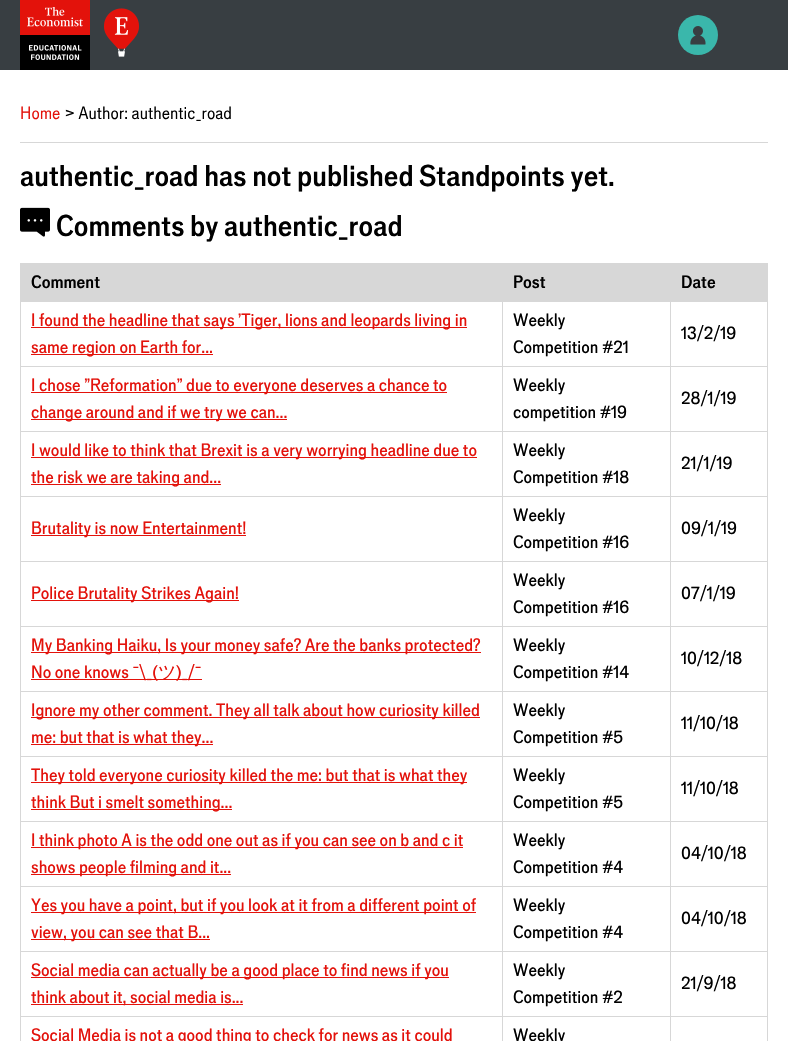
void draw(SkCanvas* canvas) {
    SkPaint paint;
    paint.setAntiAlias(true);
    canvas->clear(0xFFFFFFFF);
    paint.setColor(0xFF383E42);
    canvas->drawRect(SkRect::MakeXYWH(0, 0, 788, 70), paint);
    canvas->drawImageRect(SkImages::DeferredFromEncodedData(SkData::MakeFromFileName("img1.png")), SkRect::MakeXYWH(20, 0, 70, 70), SkSamplingOptions());
    canvas->drawImageRect(SkImages::DeferredFromEncodedData(SkData::MakeFromFileName("img2.png")), SkRect::MakeXYWH(104, 8, 35, 49), SkSamplingOptions());
    paint.setColor(0xFF3AB7AB);
    canvas->drawCircle(698, 35, 20, paint);
    canvas->drawImageRect(SkImages::DeferredFromEncodedData(SkData::MakeFromFileName("img3.png")), SkRect::MakeXYWH(690, 26, 16, 19), SkSamplingOptions());
    paint.setColor(0xFFD7D7D7);
    canvas->drawRect(SkRect::MakeXYWH(20, 142, 748, 1), paint);
    SkFont font1(fontMgr->matchFamilyStyle("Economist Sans", SkFontStyle(300, SkFontStyle::kNormal_Width, SkFontStyle::kUpright_Slant)), 18);
    font1.setSubpixel(true);
    paint.setColor(0xFFE3120B);
    canvas->drawString("Home", 20, 119, font1, paint);
    paint.setColor(0xFF000000);
    canvas->drawString("> Author: authentic_road", 65, 119, font1, paint);
    SkFont font2(fontMgr->matchFamilyStyle("Economist Sans", SkFontStyle(500, SkFontStyle::kNormal_Width, SkFontStyle::kUpright_Slant)), 30);
    font2.setSubpixel(true);
    canvas->drawString("authentic_road has not published Standpoints yet.", 20, 186, font2, paint);
    canvas->drawImageRect(SkImages::DeferredFromEncodedData(SkData::MakeFromFileName("img4.png")), SkRect::MakeXYWH(20, 207, 30, 30), SkSamplingOptions());
    canvas->drawString("Comments by authentic_road", 56, 236, font2, paint);
    paint.setColor(0xFFD7D7D7);
    canvas->drawRect(SkRect::MakeXYWH(20, 263, 748, 1), paint);
    canvas->drawRect(SkRect::MakeXYWH(767, 263, 1, 778), paint);
    canvas->drawRect(SkRect::MakeXYWH(20, 263, 1, 778), paint);
    canvas->drawRect(SkRect::MakeXYWH(21, 264, 746, 37), paint);
    SkFont font3(fontMgr->matchFamilyStyle("Economist Sans", SkFontStyle(500, SkFontStyle::kNormal_Width, SkFontStyle::kUpright_Slant)), 18);
    font3.setSubpixel(true);
    paint.setColor(0xFF000000);
    canvas->drawString("Comment", 31, 288, font3, paint);
    canvas->drawString("Post", 513, 288, font3, paint);
    canvas->drawString("Date", 681, 288, font3, paint);
    paint.setColor(0xFFD7D7D7);
    canvas->drawRect(SkRect::MakeXYWH(670, 301, 98, 1), paint);
    canvas->drawRect(SkRect::MakeXYWH(670, 366, 98, 1), paint);
    canvas->drawRect(SkRect::MakeXYWH(670, 431, 98, 1), paint);
    canvas->drawRect(SkRect::MakeXYWH(670, 496, 98, 1), paint);
    canvas->drawRect(SkRect::MakeXYWH(670, 561, 98, 1), paint);
    canvas->drawRect(SkRect::MakeXYWH(670, 626, 98, 1), paint);
    canvas->drawRect(SkRect::MakeXYWH(670, 691, 98, 1), paint);
    canvas->drawRect(SkRect::MakeXYWH(670, 756, 98, 1), paint);
    canvas->drawRect(SkRect::MakeXYWH(670, 821, 98, 1), paint);
    canvas->drawRect(SkRect::MakeXYWH(670, 886, 98, 1), paint);
    canvas->drawRect(SkRect::MakeXYWH(670, 951, 98, 1), paint);
    canvas->drawRect(SkRect::MakeXYWH(670, 1016, 98, 1), paint);
    canvas->drawRect(SkRect::MakeXYWH(670, 1016, 1, 25), paint);
    canvas->drawRect(SkRect::MakeXYWH(502, 1016, 169, 1), paint);
    canvas->drawRect(SkRect::MakeXYWH(670, 951, 1, 66), paint);
    canvas->drawRect(SkRect::MakeXYWH(502, 951, 169, 1), paint);
    canvas->drawRect(SkRect::MakeXYWH(670, 886, 1, 66), paint);
    canvas->drawRect(SkRect::MakeXYWH(502, 886, 169, 1), paint);
    canvas->drawRect(SkRect::MakeXYWH(670, 821, 1, 66), paint);
    canvas->drawRect(SkRect::MakeXYWH(502, 821, 169, 1), paint);
    canvas->drawRect(SkRect::MakeXYWH(670, 756, 1, 66), paint);
    canvas->drawRect(SkRect::MakeXYWH(502, 756, 169, 1), paint);
    canvas->drawRect(SkRect::MakeXYWH(670, 691, 1, 66), paint);
    canvas->drawRect(SkRect::MakeXYWH(502, 691, 169, 1), paint);
    canvas->drawRect(SkRect::MakeXYWH(670, 626, 1, 66), paint);
    canvas->drawRect(SkRect::MakeXYWH(502, 626, 169, 1), paint);
    canvas->drawRect(SkRect::MakeXYWH(670, 561, 1, 66), paint);
    canvas->drawRect(SkRect::MakeXYWH(502, 561, 169, 1), paint);
    canvas->drawRect(SkRect::MakeXYWH(670, 496, 1, 66), paint);
    canvas->drawRect(SkRect::MakeXYWH(502, 496, 169, 1), paint);
    canvas->drawRect(SkRect::MakeXYWH(670, 431, 1, 66), paint);
    canvas->drawRect(SkRect::MakeXYWH(502, 431, 169, 1), paint);
    canvas->drawRect(SkRect::MakeXYWH(670, 366, 1, 66), paint);
    canvas->drawRect(SkRect::MakeXYWH(502, 366, 169, 1), paint);
    canvas->drawRect(SkRect::MakeXYWH(670, 301, 1, 66), paint);
    canvas->drawRect(SkRect::MakeXYWH(502, 301, 169, 1), paint);
    canvas->drawRect(SkRect::MakeXYWH(502, 1016, 1, 25), paint);
    canvas->drawRect(SkRect::MakeXYWH(20, 1016, 483, 1), paint);
    canvas->drawRect(SkRect::MakeXYWH(502, 951, 1, 66), paint);
    canvas->drawRect(SkRect::MakeXYWH(20, 951, 483, 1), paint);
    canvas->drawRect(SkRect::MakeXYWH(502, 886, 1, 66), paint);
    canvas->drawRect(SkRect::MakeXYWH(20, 886, 483, 1), paint);
    canvas->drawRect(SkRect::MakeXYWH(502, 821, 1, 66), paint);
    canvas->drawRect(SkRect::MakeXYWH(20, 821, 483, 1), paint);
    canvas->drawRect(SkRect::MakeXYWH(502, 756, 1, 66), paint);
    canvas->drawRect(SkRect::MakeXYWH(20, 756, 483, 1), paint);
    canvas->drawRect(SkRect::MakeXYWH(502, 691, 1, 66), paint);
    canvas->drawRect(SkRect::MakeXYWH(20, 691, 483, 1), paint);
    canvas->drawRect(SkRect::MakeXYWH(502, 626, 1, 66), paint);
    canvas->drawRect(SkRect::MakeXYWH(20, 626, 483, 1), paint);
    canvas->drawRect(SkRect::MakeXYWH(502, 561, 1, 66), paint);
    canvas->drawRect(SkRect::MakeXYWH(20, 561, 483, 1), paint);
    canvas->drawRect(SkRect::MakeXYWH(502, 496, 1, 66), paint);
    canvas->drawRect(SkRect::MakeXYWH(20, 496, 483, 1), paint);
    canvas->drawRect(SkRect::MakeXYWH(502, 431, 1, 66), paint);
    canvas->drawRect(SkRect::MakeXYWH(20, 431, 483, 1), paint);
    canvas->drawRect(SkRect::MakeXYWH(502, 366, 1, 66), paint);
    canvas->drawRect(SkRect::MakeXYWH(20, 366, 483, 1), paint);
    canvas->drawRect(SkRect::MakeXYWH(502, 301, 1, 66), paint);
    canvas->drawRect(SkRect::MakeXYWH(20, 301, 483, 1), paint);
    paint.setColor(0xFFE3120B);
    canvas->drawRect(SkRect::MakeXYWH(31, 327, 436, 1), paint);
    SkFont font4(fontMgr->matchFamilyStyle("Economist Sans", SkFontStyle::Normal()), 18);
    font4.setSubpixel(true);
    canvas->drawString("I found the headline that says 'Tiger, lions and leopards living in", 31, 326, font4, paint);
    canvas->drawRect(SkRect::MakeXYWH(31, 354, 182, 1), paint);
    canvas->drawString("same region on Earth for...", 31, 353, font4, paint);
    paint.setColor(0xFF000000);
    canvas->drawString("Weekly", 513, 326, font4, paint);
    canvas->drawString("Competition #21", 513, 353, font4, paint);
    canvas->drawString("13/2/19", 681, 339, font4, paint);
    paint.setColor(0xFFE3120B);
    canvas->drawRect(SkRect::MakeXYWH(31, 392, 416, 1), paint);
    canvas->drawString("I chose \"Reformation\" due to everyone deserves a chance to", 31, 391, font4, paint);
    canvas->drawRect(SkRect::MakeXYWH(31, 419, 256, 1), paint);
    canvas->drawString("change around and if we try we can...", 31, 418, font4, paint);
    paint.setColor(0xFF000000);
    canvas->drawString("Weekly", 513, 391, font4, paint);
    canvas->drawString("competition #19", 513, 418, font4, paint);
    canvas->drawString("28/1/19", 681, 404, font4, paint);
    paint.setColor(0xFFE3120B);
    canvas->drawRect(SkRect::MakeXYWH(31, 457, 446, 1), paint);
    canvas->drawString("I would like to think that Brexit is a very worrying headline due to", 31, 456, font4, paint);
    canvas->drawRect(SkRect::MakeXYWH(31, 484, 190, 1), paint);
    canvas->drawString("the risk we are taking and...", 31, 483, font4, paint);
    paint.setColor(0xFF000000);
    canvas->drawString("Weekly", 513, 456, font4, paint);
    canvas->drawString("Competition #18", 513, 483, font4, paint);
    canvas->drawString("21/1/19", 681, 469, font4, paint);
    paint.setColor(0xFFE3120B);
    canvas->drawRect(SkRect::MakeXYWH(31, 535, 215, 1), paint);
    canvas->drawString("Brutality is now Entertainment!", 31, 534, font4, paint);
    paint.setColor(0xFF000000);
    canvas->drawString("Weekly", 513, 521, font4, paint);
    canvas->drawString("Competition #16", 513, 548, font4, paint);
    canvas->drawString("09/1/19", 681, 534, font4, paint);
    paint.setColor(0xFFE3120B);
    canvas->drawRect(SkRect::MakeXYWH(31, 600, 208, 1), paint);
    canvas->drawString("Police Brutality Strikes Again!", 31, 599, font4, paint);
    paint.setColor(0xFF000000);
    canvas->drawString("Weekly", 513, 586, font4, paint);
    canvas->drawString("Competition #16", 513, 613, font4, paint);
    canvas->drawString("07/1/19", 681, 599, font4, paint);
    paint.setColor(0xFFE3120B);
    canvas->drawRect(SkRect::MakeXYWH(31, 652, 450, 1), paint);
    canvas->drawString("My Banking Haiku, Is your money safe? Are the banks protected?", 31, 651, font4, paint);
    canvas->drawRect(SkRect::MakeXYWH(31, 679, 171, 1), paint);
    canvas->drawString("No one knows ¯\\_(", 31, 678, font4, paint);
    SkFont font5(fontMgr->matchFamilyStyle("WenQuanYi Zen Hei", SkFontStyle(500, SkFontStyle::kNormal_Width, SkFontStyle::kUpright_Slant)), 18);
    font5.setSubpixel(true);
    canvas->drawString("ツ", 158, 678, font5, paint);
    canvas->drawString(")_/¯", 176, 678, font4, paint);
    paint.setColor(0xFF000000);
    canvas->drawString("Weekly", 513, 651, font4, paint);
    canvas->drawString("Competition #14", 513, 678, font4, paint);
    canvas->drawString("10/12/18", 681, 664, font4, paint);
    paint.setColor(0xFFE3120B);
    canvas->drawRect(SkRect::MakeXYWH(31, 717, 449, 1), paint);
    canvas->drawString("Ignore my other comment. They all talk about how curiosity killed", 31, 716, font4, paint);
    canvas->drawRect(SkRect::MakeXYWH(31, 744, 182, 1), paint);
    canvas->drawString("me: but that is what they...", 31, 743, font4, paint);
    paint.setColor(0xFF000000);
    canvas->drawString("Weekly", 513, 716, font4, paint);
    canvas->drawString("Competition #5", 513, 743, font4, paint);
    canvas->drawString("11/10/18", 681, 729, font4, paint);
    paint.setColor(0xFFE3120B);
    canvas->drawRect(SkRect::MakeXYWH(31, 782, 436, 1), paint);
    canvas->drawString("They told everyone curiosity killed the me: but that is what they", 31, 781, font4, paint);
    canvas->drawRect(SkRect::MakeXYWH(31, 809, 201, 1), paint);
    canvas->drawString("think But i smelt something...", 31, 808, font4, paint);
    paint.setColor(0xFF000000);
    canvas->drawString("Weekly", 513, 781, font4, paint);
    canvas->drawString("Competition #5", 513, 808, font4, paint);
    canvas->drawString("11/10/18", 681, 794, font4, paint);
    paint.setColor(0xFFE3120B);
    canvas->drawRect(SkRect::MakeXYWH(31, 847, 432, 1), paint);
    canvas->drawString("I think photo A is the odd one out as if you can see on b and c it", 31, 846, font4, paint);
    canvas->drawRect(SkRect::MakeXYWH(31, 874, 200, 1), paint);
    canvas->drawString("shows people filming and it...", 31, 873, font4, paint);
    paint.setColor(0xFF000000);
    canvas->drawString("Weekly", 513, 846, font4, paint);
    canvas->drawString("Competition #4", 513, 873, font4, paint);
    canvas->drawString("04/10/18", 681, 859, font4, paint);
    paint.setColor(0xFFE3120B);
    canvas->drawRect(SkRect::MakeXYWH(31, 912, 445, 1), paint);
    canvas->drawString("Yes you have a point, but if you look at it from a different point of", 31, 911, font4, paint);
    canvas->drawRect(SkRect::MakeXYWH(31, 939, 179, 1), paint);
    canvas->drawString("view, you can see that B...", 31, 938, font4, paint);
    paint.setColor(0xFF000000);
    canvas->drawString("Weekly", 513, 911, font4, paint);
    canvas->drawString("Competition #4", 513, 938, font4, paint);
    canvas->drawString("04/10/18", 681, 924, font4, paint);
    paint.setColor(0xFFE3120B);
    canvas->drawRect(SkRect::MakeXYWH(31, 977, 418, 1), paint);
    canvas->drawString("Social media can actually be a good place to find news if you", 31, 976, font4, paint);
    canvas->drawRect(SkRect::MakeXYWH(31, 1004, 212, 1), paint);
    canvas->drawString("think about it, social media is...", 31, 1003, font4, paint);
    paint.setColor(0xFF000000);
    canvas->drawString("Weekly", 513, 976, font4, paint);
    canvas->drawString("Competition #2", 513, 1003, font4, paint);
    canvas->drawString("21/9/18", 681, 989, font4, paint);
    paint.setColor(0xFFE3120B);
    canvas->drawString("Social Media is not a good thing to check for news as it could", 31, 1041, font4, paint);
    paint.setColor(0xFF000000);
    canvas->drawString("Weekly", 513, 1041, font4, paint);
}
